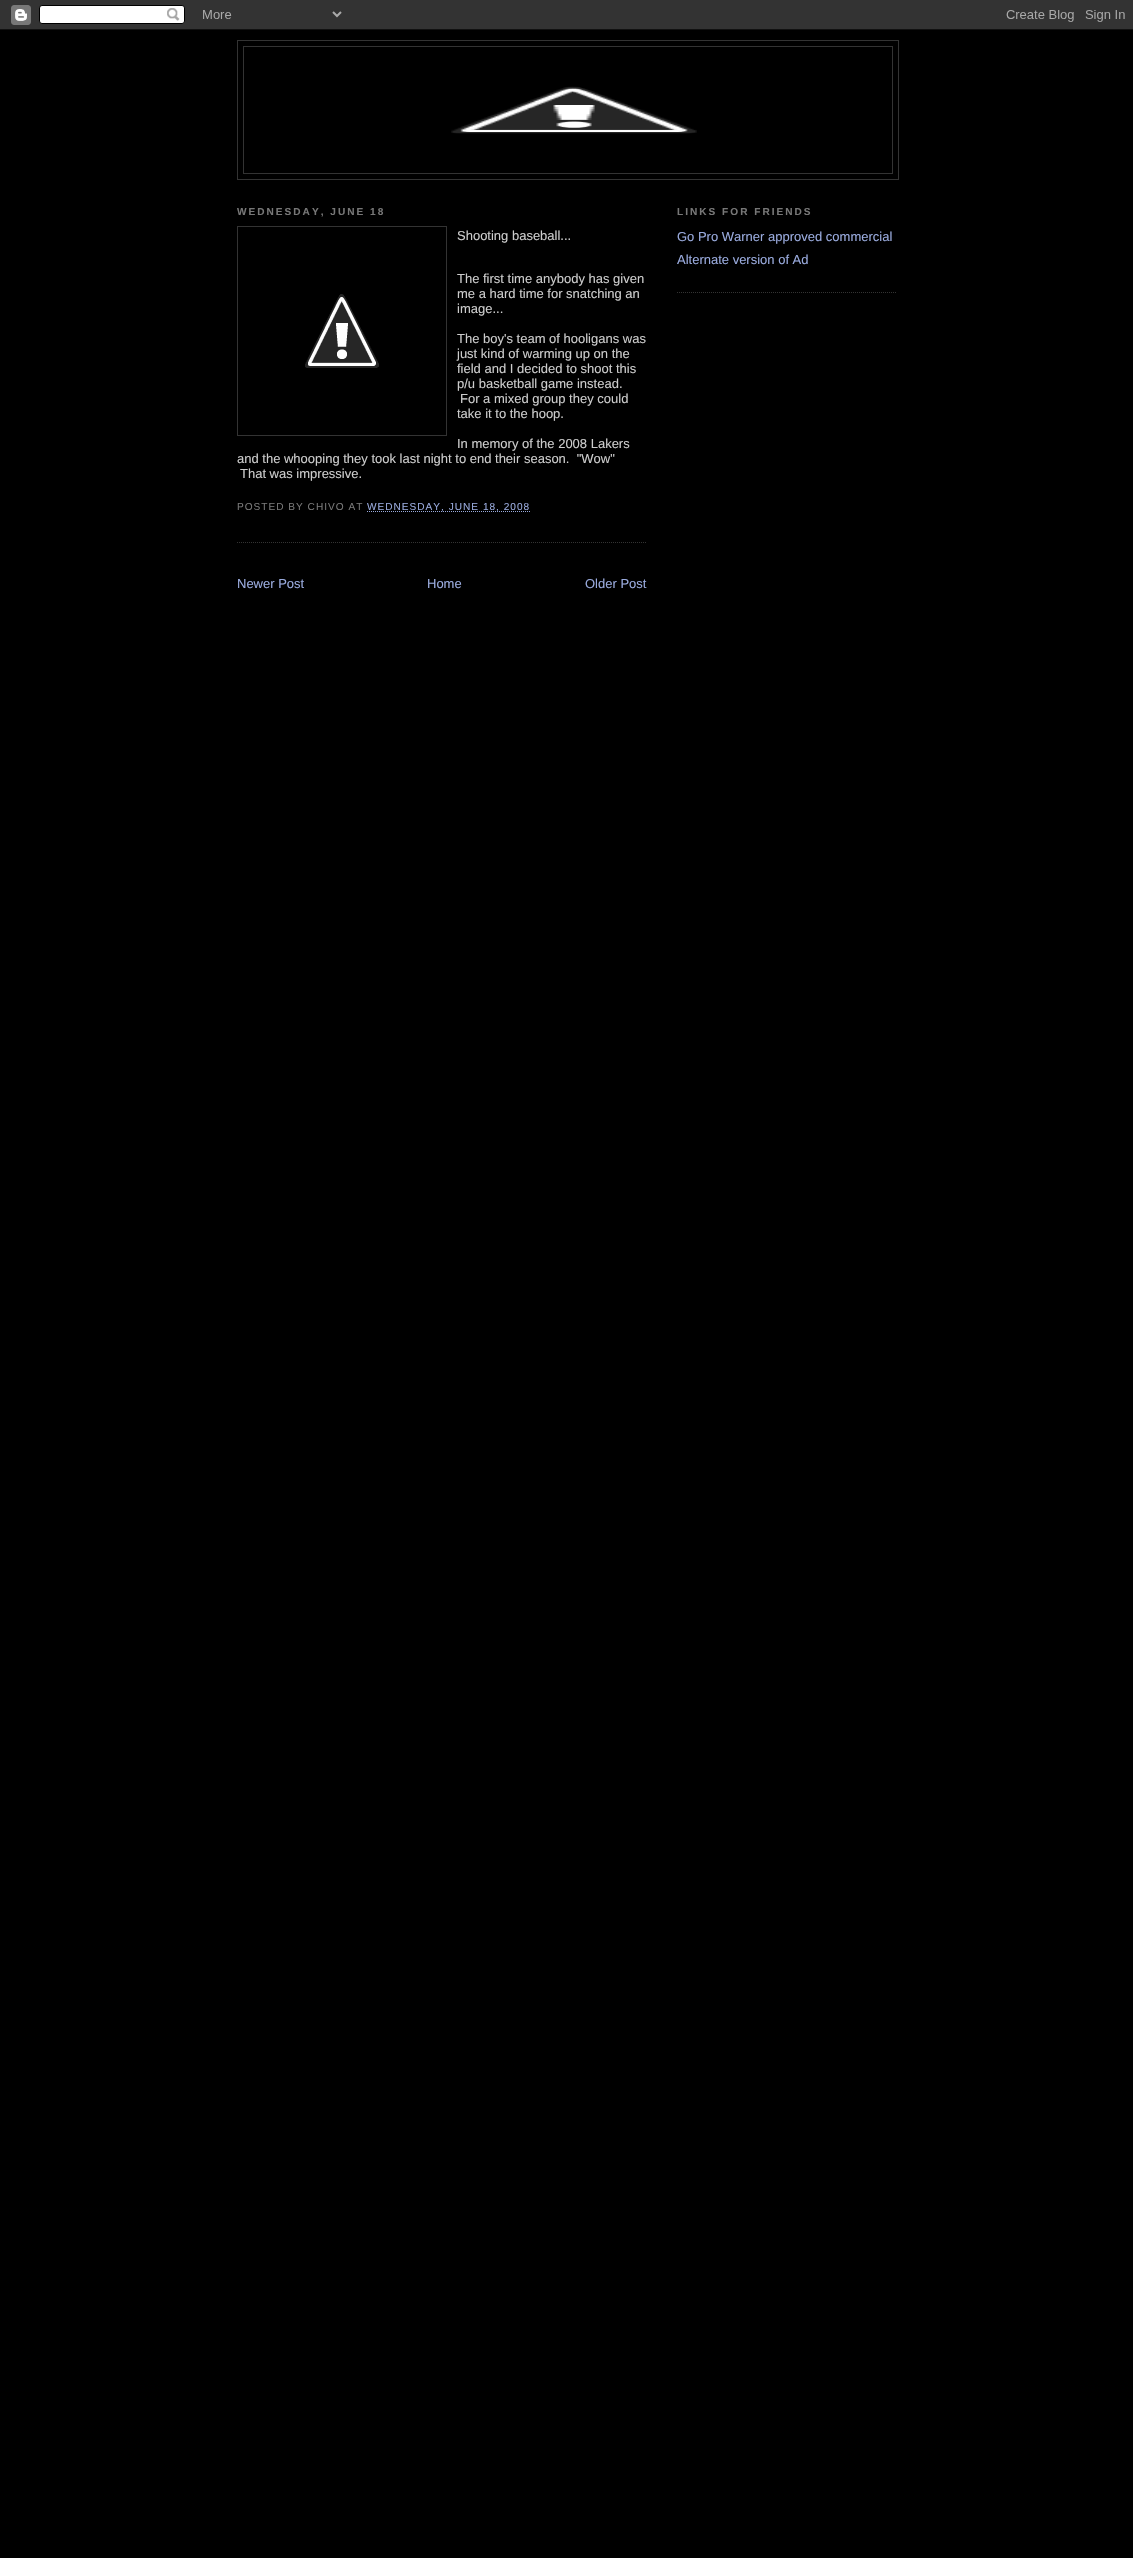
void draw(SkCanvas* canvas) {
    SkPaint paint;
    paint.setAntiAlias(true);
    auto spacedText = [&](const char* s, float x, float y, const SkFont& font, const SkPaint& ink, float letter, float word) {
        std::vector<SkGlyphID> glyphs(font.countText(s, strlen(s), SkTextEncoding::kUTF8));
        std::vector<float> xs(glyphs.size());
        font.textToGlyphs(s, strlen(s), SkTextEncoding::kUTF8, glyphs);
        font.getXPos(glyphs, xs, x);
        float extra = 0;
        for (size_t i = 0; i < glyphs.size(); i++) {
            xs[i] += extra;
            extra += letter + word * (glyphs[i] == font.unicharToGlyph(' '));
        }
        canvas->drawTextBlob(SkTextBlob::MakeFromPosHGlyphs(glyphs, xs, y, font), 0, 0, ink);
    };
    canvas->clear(0xFF000000);
    canvas->drawImageRect(SkImages::DeferredFromEncodedData(SkData::MakeFromFileName("img1.png")), SkRect::MakeXYWH(0, 0, 1133, 30), SkSamplingOptions());
    paint.setStyle(SkPaint::kStroke_Style);
    paint.setStrokeWidth(1);
    paint.setColor(0xFF333333);
    canvas->drawRect(SkRect::MakeXYWH(237.5f, 40.5f, 661, 139), paint);
    canvas->drawRect(SkRect::MakeXYWH(243.5f, 46.5f, 649, 127), paint);
    canvas->drawImageRect(SkImages::DeferredFromEncodedData(SkData::MakeFromFileName("img2.png")), SkRect::MakeXYWH(451, 86, 246, 48), SkSamplingOptions());
    SkFont font1(fontMgr->matchFamilyStyle("Liberation Sans", SkFontStyle::Bold()), 10.1f);
    font1.setSubpixel(true);
    paint.setStyle(SkPaint::kFill_Style);
    paint.setColor(0xFF777777);
    spacedText("WEDNESDAY, JUNE 18", 237, 215, font1, paint, 2, 0);
    paint.setStyle(SkPaint::kStroke_Style);
    paint.setColor(0xFF333333);
    paint.setPathEffect(SkDashPathEffect::Make({{1, 1}}, 0));
    canvas->drawPath(SkPathBuilder().moveTo(237, 542.5f).lineTo(647, 542.5f).detach(), paint);
    paint.setPathEffect(nullptr);
    canvas->drawRect(SkRect::MakeXYWH(237.5f, 226.5f, 209, 209), paint);
    canvas->drawImageRect(SkImages::DeferredFromEncodedData(SkData::MakeFromFileName("img3.png")), SkRect::MakeXYWH(305, 294, 74, 74), SkSamplingOptions());
    SkFont font2(fontMgr->matchFamilyStyle("Liberation Sans", SkFontStyle::Normal()), 13);
    font2.setSubpixel(true);
    paint.setStyle(SkPaint::kFill_Style);
    paint.setColor(0xFFCCCCCC);
    canvas->drawString("Shooting baseball...", 457, 240, font2, paint);
    canvas->drawString("The first time anybody has given", 457, 283, font2, paint);
    canvas->drawString("me a hard time for snatching an", 457, 298, font2, paint);
    canvas->drawString("image...", 457, 313, font2, paint);
    canvas->drawString("The boy's team of hooligans was", 457, 343, font2, paint);
    canvas->drawString("just kind of warming up on the", 457, 358, font2, paint);
    canvas->drawString("field and I decided to shoot this", 457, 373, font2, paint);
    canvas->drawString("p/u basketball game instead.", 457, 388, font2, paint);
    canvas->drawString("For a mixed group they could", 460, 403, font2, paint);
    canvas->drawString("take it to the hoop.", 457, 418, font2, paint);
    canvas->drawString("In memory of the 2008 Lakers", 457, 448, font2, paint);
    canvas->drawString("and the whooping they took last night to end their season.  \"Wow\"", 237, 463, font2, paint);
    canvas->drawString("That was impressive.", 240, 478, font2, paint);
    SkFont font3(fontMgr->matchFamilyStyle("Liberation Sans", SkFontStyle::Normal()), 10.1f);
    font3.setSubpixel(true);
    paint.setColor(0xFF777777);
    spacedText("POSTED BY CHIVO AT", 237, 510, font3, paint, 1, 0);
    paint.setStyle(SkPaint::kStroke_Style);
    paint.setColor(0xFF99AADD);
    paint.setPathEffect(SkDashPathEffect::Make({{1, 1}}, 0));
    canvas->drawPath(SkPathBuilder().moveTo(367, 511.5f).lineTo(531, 511.5f).detach(), paint);
    paint.setPathEffect(nullptr);
    paint.setStyle(SkPaint::kFill_Style);
    spacedText("WEDNESDAY, JUNE 18, 2008", 367, 510, font3, paint, 1, 0);
    canvas->drawString("Newer Post", 237, 588, font2, paint);
    canvas->drawString("Home", 427, 588, font2, paint);
    canvas->drawString("Older Post", 585, 588, font2, paint);
    paint.setStyle(SkPaint::kStroke_Style);
    paint.setColor(0xFF333333);
    paint.setPathEffect(SkDashPathEffect::Make({{1, 1}}, 0));
    canvas->drawPath(SkPathBuilder().moveTo(677, 292.5f).lineTo(897, 292.5f).detach(), paint);
    paint.setPathEffect(nullptr);
    paint.setStyle(SkPaint::kFill_Style);
    paint.setColor(0xFF777777);
    spacedText("LINKS FOR FRIENDS", 677, 215, font1, paint, 2, 0);
    paint.setColor(0xFF99AADD);
    canvas->drawString("Go Pro Warner approved commercial", 677, 241, font2, paint);
    canvas->drawString("Alternate version of Ad", 677, 264, font2, paint);
}
